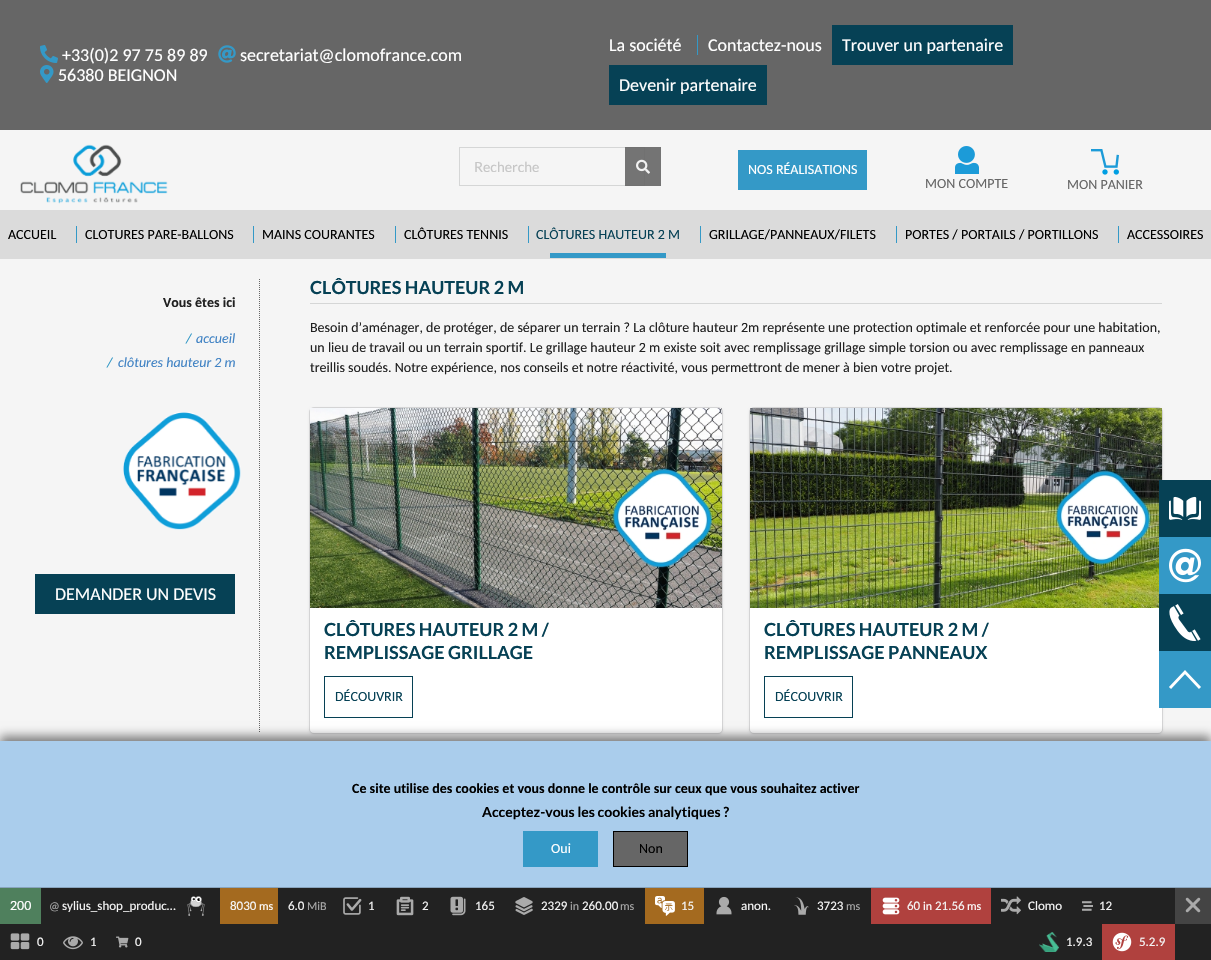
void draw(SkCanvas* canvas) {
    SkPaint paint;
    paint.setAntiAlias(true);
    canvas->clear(0xFFF5F5F5);
    paint.setColor(0xFF666666);
    canvas->drawRect(SkRect::MakeXYWH(0, 0, 1211, 130), paint);
    canvas->drawImageRect(SkImages::DeferredFromEncodedData(SkData::MakeFromFileName("img1.png")), SkRect::MakeXYWH(40, 45, 18, 18), SkSamplingOptions());
    SkFont font1(fontMgr->matchFamilyStyle("Carlito", SkFontStyle::Normal()), 18);
    font1.setSubpixel(true);
    paint.setColor(0xFFFFFFFF);
    canvas->drawString("+33(0)2 97 75 89 89", 62, 61, font1, paint);
    canvas->drawImageRect(SkImages::DeferredFromEncodedData(SkData::MakeFromFileName("img2.png")), SkRect::MakeXYWH(218, 45, 18, 18), SkSamplingOptions());
    canvas->drawString("secretariat@clomofrance.com", 240, 61, font1, paint);
    canvas->drawImageRect(SkImages::DeferredFromEncodedData(SkData::MakeFromFileName("img3.png")), SkRect::MakeXYWH(40, 65, 14, 18), SkSamplingOptions());
    canvas->drawString("56380 BEIGNON", 58, 81, font1, paint);
    paint.setColor(0xFF3499C7);
    canvas->drawRect(SkRect::MakeXYWH(697, 35, 1, 20), paint);
    paint.setColor(0xFFFFFFFF);
    canvas->drawString("La société", 609, 51, font1, paint);
    canvas->drawString("Contactez-nous", 708, 51, font1, paint);
    paint.setColor(0xFF064155);
    canvas->drawRect(SkRect::MakeXYWH(832, 25, 181, 40), paint);
    paint.setColor(0xFFFFFFFF);
    canvas->drawString("Trouver un partenaire", 842, 51, font1, paint);
    paint.setColor(0xFF064155);
    canvas->drawRect(SkRect::MakeXYWH(609, 65, 158, 40), paint);
    paint.setColor(0xFFFFFFFF);
    canvas->drawString("Devenir partenaire", 619, 91, font1, paint);
    canvas->drawImageRect(SkImages::DeferredFromEncodedData(SkData::MakeFromFileName("img4.png")), SkRect::MakeXYWH(20, 144, 148, 60), SkSamplingOptions());
    paint.setStyle(SkPaint::kStroke_Style);
    paint.setStrokeWidth(1);
    paint.setColor(0xFFD5D6D6);
    canvas->drawRect(SkRect::MakeXYWH(459.5f, 147.5f, 185, 38), paint);
    SkFont font2(fontMgr->matchFamilyStyle("Lato", SkFontStyle::Normal()), 14);
    font2.setSubpixel(true);
    paint.setStyle(SkPaint::kFill_Style);
    paint.setColor(0xFFC6C6C6);
    canvas->drawString("Recherche", 474, 172, font2, paint);
    paint.setColor(0xE6666666);
    canvas->drawRect(SkRect::MakeXYWH(625, 147, 36, 39), paint);
    canvas->drawImageRect(SkImages::DeferredFromEncodedData(SkData::MakeFromFileName("img5.png")), SkRect::MakeXYWH(636, 159, 14, 15), SkSamplingOptions());
    paint.setColor(0xFF3499C7);
    canvas->drawRect(SkRect::MakeXYWH(738, 150, 129, 40), paint);
    SkFont font3(fontMgr->matchFamilyStyle("Carlito", SkFontStyle::Normal()), 14);
    font3.setSubpixel(true);
    paint.setColor(0xFFFFFFFF);
    canvas->drawString("NOS RÉALISATIONS", 748, 174, font3, paint);
    canvas->drawImageRect(SkImages::DeferredFromEncodedData(SkData::MakeFromFileName("img6.png")), SkRect::MakeXYWH(955, 146, 24, 28), SkSamplingOptions());
    paint.setColor(0xFF666666);
    canvas->drawString("MON COMPTE", 925, 188, font3, paint);
    canvas->drawImageRect(SkImages::DeferredFromEncodedData(SkData::MakeFromFileName("img7.png")), SkRect::MakeXYWH(1091, 149, 28, 26), SkSamplingOptions());
    canvas->drawString("MON PANIER", 1067, 189, font3, paint);
    paint.setColor(0xFFDBDBDB);
    canvas->drawRect(SkRect::MakeXYWH(0, 210, 1211, 49), paint);
    paint.setColor(0xFF000000);
    canvas->drawString("ACCUEIL", 8, 239, font3, paint);
    paint.setColor(0xFF3499C7);
    canvas->drawRect(SkRect::MakeXYWH(76, 226, 1, 17), paint);
    paint.setColor(0xFF000000);
    canvas->drawString("CLOTURES PARE-BALLONS", 85, 239, font3, paint);
    paint.setColor(0xFF3499C7);
    canvas->drawRect(SkRect::MakeXYWH(253, 226, 1, 17), paint);
    paint.setColor(0xFF000000);
    canvas->drawString("MAINS COURANTES", 262, 239, font3, paint);
    paint.setColor(0xFF3499C7);
    canvas->drawRect(SkRect::MakeXYWH(395, 226, 1, 17), paint);
    paint.setColor(0xFF000000);
    canvas->drawString("CLÔTURES TENNIS", 404, 239, font3, paint);
    paint.setColor(0xFF3499C7);
    canvas->drawRect(SkRect::MakeXYWH(528, 226, 1, 17), paint);
    paint.setColor(0xFF064155);
    canvas->drawString("CLÔTURES HAUTEUR 2 M", 536, 239, font3, paint);
    paint.setColor(0xFF3499C7);
    canvas->drawRect(SkRect::MakeXYWH(550, 253, 116, 5), paint);
    canvas->drawRect(SkRect::MakeXYWH(700, 226, 1, 17), paint);
    paint.setColor(0xFF000000);
    canvas->drawString("GRILLAGE/PANNEAUX/FILETS", 709, 239, font3, paint);
    paint.setColor(0xFF3499C7);
    canvas->drawRect(SkRect::MakeXYWH(896, 226, 1, 17), paint);
    paint.setColor(0xFF000000);
    canvas->drawString("PORTES / PORTAILS / PORTILLONS", 905, 239, font3, paint);
    paint.setColor(0xFF3499C7);
    canvas->drawRect(SkRect::MakeXYWH(1118, 226, 1, 17), paint);
    paint.setColor(0xFF000000);
    canvas->drawString("ACCESSOIRES", 1127, 239, font3, paint);
    paint.setStyle(SkPaint::kStroke_Style);
    paint.setColor(0xFF666666);
    paint.setPathEffect(SkDashPathEffect::Make({{1, 1}}, 0));
    canvas->drawPath(SkPathBuilder().moveTo(259.5f, 279).lineTo(259.5f, 733).detach(), paint);
    paint.setPathEffect(nullptr);
    SkFont font4(fontMgr->matchFamilyStyle("Carlito", SkFontStyle::Bold()), 14);
    font4.setSubpixel(true);
    paint.setStyle(SkPaint::kFill_Style);
    paint.setColor(0xFF202020);
    canvas->drawString("Vous êtes ici", 163, 307, font4, paint);
    SkFont font5(fontMgr->matchFamilyStyle("Carlito", SkFontStyle::Italic()), 14);
    font5.setSubpixel(true);
    paint.setColor(0xFF3499C7);
    canvas->drawString("/", 186, 343, font5, paint);
    paint.setColor(0xFF4183C4);
    canvas->drawString("accueil", 196, 343, font5, paint);
    paint.setColor(0xFF3499C7);
    canvas->drawString("/", 107, 367, font5, paint);
    paint.setColor(0xFF4183C4);
    canvas->drawString("clôtures hauteur 2 m", 118, 367, font5, paint);
    canvas->drawImageRect(SkImages::DeferredFromEncodedData(SkData::MakeFromFileName("img8.png")), SkRect::MakeXYWH(123, 412, 118, 118), SkSamplingOptions());
    paint.setColor(0xFF064155);
    canvas->drawRect(SkRect::MakeXYWH(35, 574, 200, 40), paint);
    paint.setColor(0xFFFFFFFF);
    canvas->drawString("DEMANDER UN DEVIS", 55, 600, font1, paint);
    paint.setColor(0xFFD5D6D6);
    canvas->drawRect(SkRect::MakeXYWH(310, 303, 852, 1), paint);
    SkFont font6(fontMgr->matchFamilyStyle("Lato", SkFontStyle::Bold()), 18);
    font6.setSubpixel(true);
    paint.setColor(0xFF064155);
    canvas->drawString("CLÔTURES HAUTEUR 2 M", 310, 294, font6, paint);
    paint.setColor(0xFF202020);
    canvas->drawString("Besoin d’aménager, de protéger, de séparer un terrain ? La clôture hauteur 2m représente une protection optimale et renforcée pour une habitation,", 310, 332, font3, paint);
    canvas->drawString("un lieu de travail ou un terrain sportif. Le grillage hauteur 2 m existe soit avec remplissage grillage simple torsion ou avec remplissage en panneaux", 310, 352, font3, paint);
    canvas->drawString("treillis soudés. Notre expérience, nos conseils et notre réactivité, vous permettront de mener à bien votre projet.", 310, 372, font3, paint);
    paint.setStyle(SkPaint::kStroke_Style);
    paint.setColor(0xFFD4D4D5);
    canvas->drawRoundRect(SkRect::MakeXYWH(309.5f, 407.5f, 413, 326), 4.5f, 4.5f, paint);
    paint.setStyle(SkPaint::kFill_Style);
    paint.setMaskFilter(SkMaskFilter::MakeBlur(kNormal_SkBlurStyle, 1.5f));
    canvas->drawRoundRect(SkRect::MakeXYWH(310, 409, 412, 325), 4, 4, paint);
    paint.setMaskFilter(nullptr);
    paint.setColor(0xFFFFFFFF);
    canvas->drawRoundRect(SkRect::MakeXYWH(310, 408, 412, 325), 4, 4, paint);
    canvas->drawImageRect(SkImages::DeferredFromEncodedData(SkData::MakeFromFileName("img9.png")), SkRect::MakeXYWH(310, 408, 412, 200), SkSamplingOptions());
    paint.setColor(0xFF064155);
    canvas->drawString("CLÔTURES HAUTEUR 2 M /", 324, 636, font6, paint);
    canvas->drawString("REMPLISSAGE GRILLAGE", 324, 659, font6, paint);
    paint.setStyle(SkPaint::kStroke_Style);
    canvas->drawRect(SkRect::MakeXYWH(324.5f, 676.5f, 88, 41), paint);
    paint.setStyle(SkPaint::kFill_Style);
    canvas->drawString("DÉCOUVRIR", 335, 701, font3, paint);
    paint.setStyle(SkPaint::kStroke_Style);
    paint.setColor(0xFFD4D4D5);
    canvas->drawRoundRect(SkRect::MakeXYWH(749.5f, 407.5f, 413, 326), 4.5f, 4.5f, paint);
    paint.setStyle(SkPaint::kFill_Style);
    paint.setMaskFilter(SkMaskFilter::MakeBlur(kNormal_SkBlurStyle, 1.5f));
    canvas->drawRoundRect(SkRect::MakeXYWH(750, 409, 412, 325), 4, 4, paint);
    paint.setMaskFilter(nullptr);
    paint.setColor(0xFFFFFFFF);
    canvas->drawRoundRect(SkRect::MakeXYWH(750, 408, 412, 325), 4, 4, paint);
    canvas->drawImageRect(SkImages::DeferredFromEncodedData(SkData::MakeFromFileName("img10.png")), SkRect::MakeXYWH(750, 408, 412, 200), SkSamplingOptions());
    paint.setColor(0xFF064155);
    canvas->drawString("CLÔTURES HAUTEUR 2 M /", 764, 636, font6, paint);
    canvas->drawString("REMPLISSAGE PANNEAUX", 764, 659, font6, paint);
    paint.setStyle(SkPaint::kStroke_Style);
    canvas->drawRect(SkRect::MakeXYWH(764.5f, 676.5f, 88, 41), paint);
    paint.setStyle(SkPaint::kFill_Style);
    canvas->drawString("DÉCOUVRIR", 775, 701, font3, paint);
    canvas->drawRect(SkRect::MakeXYWH(1159, 480, 52, 57), paint);
    canvas->drawImageRect(SkImages::DeferredFromEncodedData(SkData::MakeFromFileName("img11.png")), SkRect::MakeXYWH(1169, 496, 32, 24), SkSamplingOptions());
    paint.setColor(0xFF3499C7);
    canvas->drawRect(SkRect::MakeXYWH(1159, 537, 52, 57), paint);
    canvas->drawImageRect(SkImages::DeferredFromEncodedData(SkData::MakeFromFileName("img12.png")), SkRect::MakeXYWH(1169, 548, 32, 35), SkSamplingOptions());
    paint.setColor(0xFF064155);
    canvas->drawRect(SkRect::MakeXYWH(1159, 594, 52, 57), paint);
    canvas->drawImageRect(SkImages::DeferredFromEncodedData(SkData::MakeFromFileName("img13.png")), SkRect::MakeXYWH(1169, 604, 32, 37), SkSamplingOptions());
    paint.setColor(0xFF3499C7);
    canvas->drawRect(SkRect::MakeXYWH(1159, 651, 52, 57), paint);
    paint.setStyle(SkPaint::kStroke_Style);
    paint.setStrokeWidth(2.9f);
    paint.setColor(0xFFFFFFFF);
    canvas->drawPath(SkPathBuilder().moveTo(1170, 688).lineTo(1185, 672).lineTo(1200, 688).detach(), paint);
    paint.setStyle(SkPaint::kFill_Style);
    paint.setColor(0x80000000);
    paint.setMaskFilter(SkMaskFilter::MakeBlur(kNormal_SkBlurStyle, 5));
    canvas->drawRect(SkRect::MakeXYWH(0, 736, 1211, 219), paint);
    paint.setMaskFilter(nullptr);
    paint.setColor(0xFFAACDEC);
    canvas->drawRect(SkRect::MakeXYWH(0, 741, 1211, 146), paint);
    paint.setColor(0xFF000000);
    canvas->drawString("Ce site utilise des cookies et vous donne le contrôle sur ceux que vous souhaitez activer", 352, 793, font4, paint);
    SkFont font7(fontMgr->matchFamilyStyle("Lato", SkFontStyle::Bold()), 14);
    font7.setSubpixel(true);
    canvas->drawString("Acceptez-vous les cookies analytiques ?", 482, 817, font7, paint);
    paint.setColor(0xFF3499C7);
    canvas->drawRect(SkRect::MakeXYWH(523, 831, 75, 36), paint);
    paint.setColor(0xFFFFFFFF);
    canvas->drawString("Oui", 551, 853, font3, paint);
    paint.setColor(0xFF666666);
    canvas->drawRect(SkRect::MakeXYWH(613.5f, 831.5f, 74, 35), paint);
    paint.setStyle(SkPaint::kStroke_Style);
    paint.setStrokeWidth(1);
    paint.setColor(0xFF000000);
    canvas->drawRect(SkRect::MakeXYWH(613.5f, 831.5f, 74, 35), paint);
    paint.setStyle(SkPaint::kFill_Style);
    canvas->drawString("Non", 639, 853, font3, paint);
    paint.setColor(0xFF88A4BD);
    canvas->drawRect(SkRect::MakeXYWH(0, 887, 1211, 1), paint);
    paint.setColor(0xFF222222);
    canvas->drawRect(SkRect::MakeXYWH(0, 888, 1211, 72), paint);
    paint.setColor(0xFF4F805D);
    canvas->drawRect(SkRect::MakeXYWH(0, 888, 41, 36), paint);
    paint.setColor(0xFFFFFFFF);
    canvas->drawString("200", 10, 910, font3, paint);
    SkFont font8(fontMgr->matchFamilyStyle("Carlito", SkFontStyle::Normal()), 12);
    font8.setSubpixel(true);
    paint.setColor(0xFFAAAAAA);
    canvas->drawString("@", 49, 910, font8, paint);
    SkFont font9(fontMgr->matchFamilyStyle("Carlito", SkFontStyle::Normal()), 13);
    font9.setSubpixel(true);
    paint.setColor(0xFFF5F5F5);
    canvas->drawString("sylius_shop_produc…", 62, 910, font9, paint);
    canvas->drawImageRect(SkImages::DeferredFromEncodedData(SkData::MakeFromFileName("img14.png")), SkRect::MakeXYWH(187, 896, 18, 20), SkSamplingOptions());
    paint.setColor(0xFFA46A1F);
    canvas->drawRect(SkRect::MakeXYWH(220, 888, 58, 36), paint);
    paint.setColor(0xFFF5F5F5);
    canvas->drawString("8030", 230, 910, font9, paint);
    paint.setColor(0xFFFFFFFF);
    canvas->drawString("ms", 259, 910, font8, paint);
    paint.setColor(0xFFF5F5F5);
    canvas->drawString("6.0", 288, 910, font9, paint);
    paint.setColor(0xFFAAAAAA);
    canvas->drawString("MiB", 307, 910, font8, paint);
    canvas->drawImageRect(SkImages::DeferredFromEncodedData(SkData::MakeFromFileName("img15.png")), SkRect::MakeXYWH(343, 897, 19, 18), SkSamplingOptions());
    paint.setColor(0xFFF5F5F5);
    canvas->drawString("1", 368, 910, font9, paint);
    canvas->drawImageRect(SkImages::DeferredFromEncodedData(SkData::MakeFromFileName("img16.png")), SkRect::MakeXYWH(396, 896, 18, 20), SkSamplingOptions());
    canvas->drawString("2", 422, 910, font9, paint);
    canvas->drawImageRect(SkImages::DeferredFromEncodedData(SkData::MakeFromFileName("img17.png")), SkRect::MakeXYWH(450, 896, 16, 20), SkSamplingOptions());
    canvas->drawString("165", 475, 910, font9, paint);
    canvas->drawImageRect(SkImages::DeferredFromEncodedData(SkData::MakeFromFileName("img18.png")), SkRect::MakeXYWH(515, 897, 18, 18), SkSamplingOptions());
    canvas->drawString("2329", 541, 910, font9, paint);
    paint.setColor(0xFFAAAAAA);
    canvas->drawString("in", 570, 910, font8, paint);
    paint.setColor(0xFFF5F5F5);
    canvas->drawString("260.00", 582, 910, font9, paint);
    paint.setColor(0xFFAAAAAA);
    canvas->drawString("ms", 620, 910, font8, paint);
    paint.setColor(0xFFA46A1F);
    canvas->drawRect(SkRect::MakeXYWH(645, 888, 59, 36), paint);
    canvas->drawImageRect(SkImages::DeferredFromEncodedData(SkData::MakeFromFileName("img19.png")), SkRect::MakeXYWH(655, 896, 20, 20), SkSamplingOptions());
    paint.setColor(0xFFF5F5F5);
    canvas->drawString("15", 681, 910, font9, paint);
    canvas->drawImageRect(SkImages::DeferredFromEncodedData(SkData::MakeFromFileName("img20.png")), SkRect::MakeXYWH(716, 896, 16, 19), SkSamplingOptions());
    canvas->drawString("anon.", 741, 910, font9, paint);
    canvas->drawImageRect(SkImages::DeferredFromEncodedData(SkData::MakeFromFileName("img21.png")), SkRect::MakeXYWH(794, 897, 15, 18), SkSamplingOptions());
    canvas->drawString("3723", 817, 910, font9, paint);
    paint.setColor(0xFFAAAAAA);
    canvas->drawString("ms", 846, 910, font8, paint);
    paint.setColor(0xFFB0413E);
    canvas->drawRect(SkRect::MakeXYWH(871, 888, 120, 36), paint);
    canvas->drawImageRect(SkImages::DeferredFromEncodedData(SkData::MakeFromFileName("img22.png")), SkRect::MakeXYWH(882, 897, 18, 18), SkSamplingOptions());
    paint.setColor(0xFFF5F5F5);
    canvas->drawString("60", 907, 910, font9, paint);
    paint.setColor(0xFFFFFFFF);
    canvas->drawString("in", 923, 910, font8, paint);
    paint.setColor(0xFFF5F5F5);
    canvas->drawString("21.56", 935, 910, font9, paint);
    paint.setColor(0xFFFFFFFF);
    canvas->drawString("ms", 967, 910, font8, paint);
    canvas->drawImageRect(SkImages::DeferredFromEncodedData(SkData::MakeFromFileName("img23.png")), SkRect::MakeXYWH(1001, 896, 20, 19), SkSamplingOptions());
    paint.setColor(0xFFF5F5F5);
    canvas->drawString("Clomo", 1028, 910, font9, paint);
    canvas->drawImageRect(SkImages::DeferredFromEncodedData(SkData::MakeFromFileName("img24.png")), SkRect::MakeXYWH(1082, 901, 11, 10), SkSamplingOptions());
    canvas->drawString("12", 1099, 910, font9, paint);
    paint.setColor(0xFF444444);
    canvas->drawRect(SkRect::MakeXYWH(1175, 888, 36, 36), paint);
    canvas->drawImageRect(SkImages::DeferredFromEncodedData(SkData::MakeFromFileName("img25.png")), SkRect::MakeXYWH(1185, 897, 16, 16), SkSamplingOptions());
    canvas->drawImageRect(SkImages::DeferredFromEncodedData(SkData::MakeFromFileName("img26.png")), SkRect::MakeXYWH(10, 933, 20, 17), SkSamplingOptions());
    paint.setColor(0xFFF5F5F5);
    canvas->drawString("0", 37, 946, font9, paint);
    canvas->drawImageRect(SkImages::DeferredFromEncodedData(SkData::MakeFromFileName("img27.png")), SkRect::MakeXYWH(63, 936, 20, 14), SkSamplingOptions());
    canvas->drawString("1", 90, 946, font9, paint);
    canvas->drawImageRect(SkImages::DeferredFromEncodedData(SkData::MakeFromFileName("img28.png")), SkRect::MakeXYWH(116, 936, 13, 12), SkSamplingOptions());
    canvas->drawString("0", 135, 946, font9, paint);
    canvas->drawImageRect(SkImages::DeferredFromEncodedData(SkData::MakeFromFileName("img29.png")), SkRect::MakeXYWH(1039, 932, 20, 20), SkSamplingOptions());
    canvas->drawString("1.9.3", 1066, 946, font9, paint);
    paint.setColor(0xFFB0413E);
    canvas->drawRect(SkRect::MakeXYWH(1102, 924, 73, 36), paint);
    canvas->drawImageRect(SkImages::DeferredFromEncodedData(SkData::MakeFromFileName("img30.png")), SkRect::MakeXYWH(1112, 932, 20, 20), SkSamplingOptions());
    paint.setColor(0xFFF5F5F5);
    canvas->drawString("5.2.9", 1139, 946, font9, paint);
}
